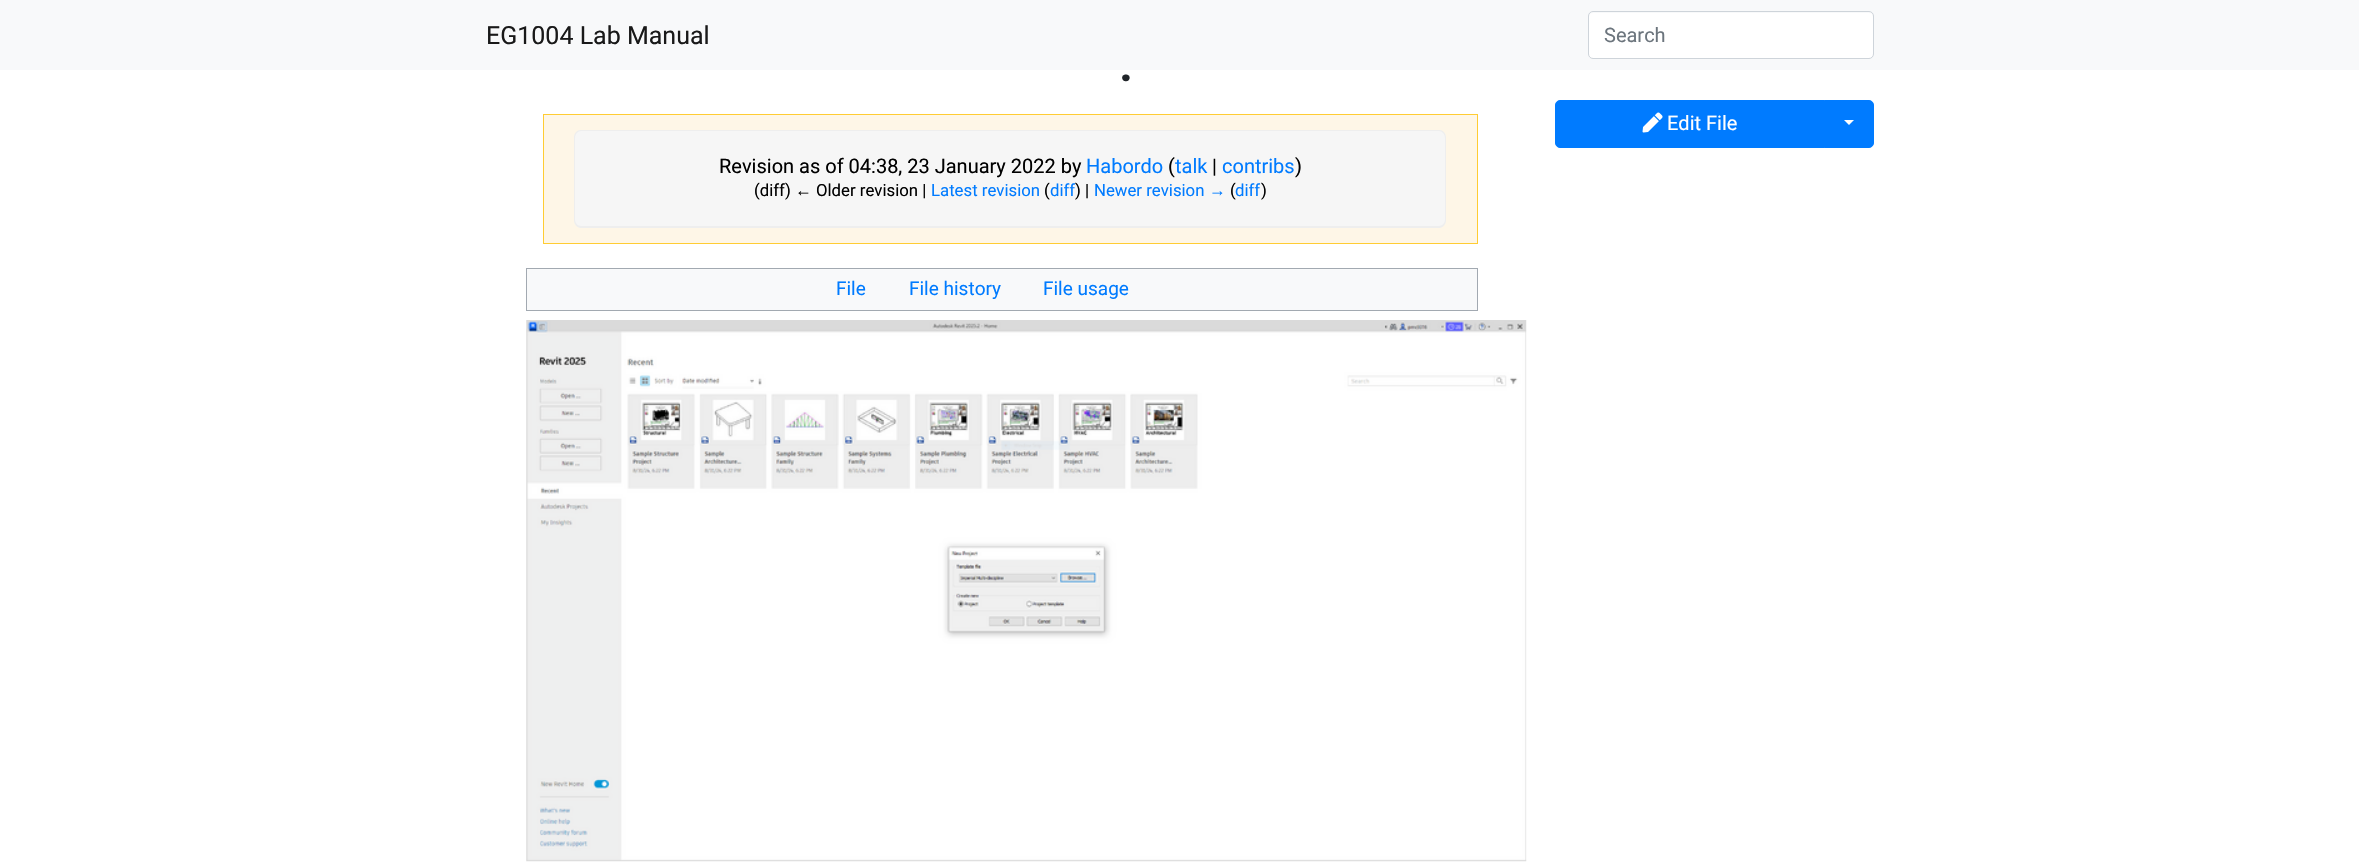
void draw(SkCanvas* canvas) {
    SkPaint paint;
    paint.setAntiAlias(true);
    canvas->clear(0xFFFFFFFF);
    paint.setColor(0xFFF8F9FA);
    canvas->drawRect(SkRect::MakeXYWH(0, 0, 2359, 70), paint);
    SkFont font1(fontMgr->matchFamilyStyle("Roboto", SkFontStyle::Normal()), 25);
    font1.setSubpixel(true);
    paint.setColor(0xFF191919);
    canvas->drawString("EG1004 Lab Manual", 486, 44, font1, paint);
    paint.setColor(0xFFFFFFFF);
    canvas->drawRoundRect(SkRect::MakeXYWH(1589, 13, 284, 45), 4, 4, paint);
    paint.setStyle(SkPaint::kStroke_Style);
    paint.setStrokeWidth(1);
    paint.setColor(0xFFCED4DA);
    canvas->drawRoundRect(SkRect::MakeXYWH(1588.5f, 11.5f, 285, 47), 4.5f, 4.5f, paint);
    SkFont font2(fontMgr->matchFamilyStyle("Roboto", SkFontStyle::Normal()), 20);
    font2.setSubpixel(true);
    paint.setStyle(SkPaint::kFill_Style);
    paint.setColor(0xFF6C757D);
    canvas->drawString("Search", 1604, 42, font2, paint);
    SkFont font3(fontMgr->matchFamilyStyle("Roboto", SkFontStyle(600, SkFontStyle::kNormal_Width, SkFontStyle::kUpright_Slant)), 50);
    font3.setSubpixel(true);
    paint.setColor(0xFF212529);
    canvas->drawString(".", 1119, 81, font3, paint);
    paint.setColor(0xFFFEF6E7);
    canvas->drawRect(SkRect::MakeXYWH(543.5f, 114.5f, 934, 129), paint);
    paint.setStyle(SkPaint::kStroke_Style);
    paint.setColor(0xFFFFCC33);
    canvas->drawRect(SkRect::MakeXYWH(543.5f, 114.5f, 934, 129), paint);
    paint.setStyle(SkPaint::kFill_Style);
    paint.setColor(0xFFF6F6F6);
    canvas->drawPath(SkPathBuilder().moveTo(582, 130).lineTo(1438, 130).cubicTo(1442.5f, 130, 1446, 133.5f, 1446, 138).lineTo(1446, 181).lineTo(574, 181).lineTo(574, 138).cubicTo(574, 133.5f, 577.5f, 130, 582, 130).close().detach(), paint);
    paint.setColor(0xFFEEEEEE);
    canvas->drawPath(SkPathBuilder(SkPathFillType::kEvenOdd).moveTo(581, 130).lineTo(1439, 130).cubicTo(1443, 130, 1446, 133, 1446, 138).lineTo(1446, 181).lineTo(574, 181).lineTo(574, 138).cubicTo(574, 133, 577, 130, 581, 130).close().moveTo(581, 131).lineTo(1439, 131).cubicTo(1442, 131, 1445, 134, 1445, 138).lineTo(1445, 181).lineTo(575, 181).lineTo(575, 138).cubicTo(575, 134, 578, 131, 581, 131).close().detach(), paint);
    paint.setColor(0xFF000000);
    canvas->drawString("Revision as of 04:38, 23 January 2022 by", 719, 173, font2, paint);
    paint.setColor(0xFF007BFF);
    canvas->drawString("Habordo", 1086, 173, font2, paint);
    paint.setColor(0xFF000000);
    canvas->drawString("(", 1168, 173, font2, paint);
    paint.setColor(0xFF007BFF);
    canvas->drawString("talk", 1175, 173, font2, paint);
    paint.setColor(0xFF000000);
    canvas->drawString("|", 1212, 173, font2, paint);
    paint.setColor(0xFF007BFF);
    canvas->drawString("contribs", 1222, 173, font2, paint);
    paint.setColor(0xFF000000);
    canvas->drawString(")", 1295, 173, font2, paint);
    paint.setColor(0xFFF6F6F6);
    canvas->drawPath(SkPathBuilder().moveTo(574, 181).lineTo(1446, 181).lineTo(1446, 220).cubicTo(1446, 224.5f, 1442.5f, 228, 1438, 228).lineTo(582, 228).cubicTo(577.5f, 228, 574, 224.5f, 574, 220).close().detach(), paint);
    paint.setColor(0xFFEEEEEE);
    canvas->drawPath(SkPathBuilder(SkPathFillType::kEvenOdd).moveTo(574, 181).lineTo(1446, 181).lineTo(1446, 220).cubicTo(1446, 224, 1443, 228, 1439, 228).lineTo(581, 228).cubicTo(577, 228, 574, 224, 574, 220).close().moveTo(575, 181).lineTo(1445, 181).lineTo(1445, 220).cubicTo(1445, 223, 1442, 226, 1439, 226).lineTo(581, 226).cubicTo(578, 226, 575, 223, 575, 220).close().detach(), paint);
    SkFont font4(fontMgr->matchFamilyStyle("Roboto", SkFontStyle::Normal()), 16.75f);
    font4.setSubpixel(true);
    paint.setColor(0xFF000000);
    canvas->drawString("(diff)", 754, 196, font4, paint);
    SkFont font5(fontMgr->matchFamilyStyle("Liberation Sans", SkFontStyle::Normal()), 16.75f);
    font5.setSubpixel(true);
    canvas->drawString("←", 795, 196, font5, paint);
    canvas->drawString("Older revision |", 816, 196, font4, paint);
    paint.setColor(0xFF007BFF);
    canvas->drawString("Latest revision", 931, 196, font4, paint);
    paint.setColor(0xFF000000);
    canvas->drawString("(", 1044, 196, font4, paint);
    paint.setColor(0xFF007BFF);
    canvas->drawString("diff", 1050, 196, font4, paint);
    paint.setColor(0xFF000000);
    canvas->drawString(") |", 1075, 196, font4, paint);
    paint.setColor(0xFF007BFF);
    canvas->drawString("Newer revision", 1094, 196, font4, paint);
    canvas->drawString("→", 1209, 196, font5, paint);
    paint.setColor(0xFF000000);
    canvas->drawString("(", 1230, 196, font4, paint);
    paint.setColor(0xFF007BFF);
    canvas->drawString("diff", 1235, 196, font4, paint);
    paint.setColor(0xFF000000);
    canvas->drawString(")", 1261, 196, font4, paint);
    paint.setColor(0xFFF8F9FA);
    canvas->drawRect(SkRect::MakeXYWH(526.5f, 268.5f, 951, 42), paint);
    paint.setStyle(SkPaint::kStroke_Style);
    paint.setColor(0xFFA2A9B1);
    canvas->drawRect(SkRect::MakeXYWH(526.5f, 268.5f, 951, 42), paint);
    SkFont font6(fontMgr->matchFamilyStyle("Roboto", SkFontStyle::Normal()), 19);
    font6.setSubpixel(true);
    paint.setStyle(SkPaint::kFill_Style);
    paint.setColor(0xFF007BFF);
    canvas->drawString("File", 836, 295, font6, paint);
    canvas->drawString("File history", 909, 295, font6, paint);
    canvas->drawString("File usage", 1043, 295, font6, paint);
    canvas->drawImageRect(SkImages::DeferredFromEncodedData(SkData::MakeFromFileName("img1.png")), SkRect::MakeXYWH(526, 320, 1001, 542), SkSamplingOptions());
    canvas->drawPath(SkPathBuilder().moveTo(1560, 100.5f).lineTo(1824.5f, 100.5f).lineTo(1824.5f, 147.5f).lineTo(1560, 147.5f).cubicTo(1557.5f, 147.5f, 1555.5f, 145.5f, 1555.5f, 143).lineTo(1555.5f, 105).cubicTo(1555.5f, 102.5f, 1557.5f, 100.5f, 1560, 100.5f).close().detach(), paint);
    paint.setStyle(SkPaint::kStroke_Style);
    canvas->drawPath(SkPathBuilder().moveTo(1560, 100.5f).lineTo(1824.5f, 100.5f).lineTo(1824.5f, 147.5f).lineTo(1560, 147.5f).cubicTo(1557.5f, 147.5f, 1555.5f, 145.5f, 1555.5f, 143).lineTo(1555.5f, 105).cubicTo(1555.5f, 102.5f, 1557.5f, 100.5f, 1560, 100.5f).close().detach(), paint);
    canvas->drawImageRect(SkImages::DeferredFromEncodedData(SkData::MakeFromFileName("img2.png")), SkRect::MakeXYWH(1642, 112, 21, 21), SkSamplingOptions());
    paint.setStyle(SkPaint::kFill_Style);
    paint.setColor(0xFFFFFFFF);
    canvas->drawString("Edit File", 1667, 130, font2, paint);
    paint.setColor(0xFF007BFF);
    canvas->drawPath(SkPathBuilder().moveTo(1824.5f, 100.5f).lineTo(1869, 100.5f).cubicTo(1871.5f, 100.5f, 1873.5f, 102.5f, 1873.5f, 105).lineTo(1873.5f, 143).cubicTo(1873.5f, 145.5f, 1871.5f, 147.5f, 1869, 147.5f).lineTo(1824.5f, 147.5f).close().detach(), paint);
    paint.setStyle(SkPaint::kStroke_Style);
    canvas->drawPath(SkPathBuilder().moveTo(1824.5f, 100.5f).lineTo(1869, 100.5f).cubicTo(1871.5f, 100.5f, 1873.5f, 102.5f, 1873.5f, 105).lineTo(1873.5f, 143).cubicTo(1873.5f, 145.5f, 1871.5f, 147.5f, 1869, 147.5f).lineTo(1824.5f, 147.5f).close().detach(), paint);
    paint.setStyle(SkPaint::kFill_Style);
    paint.setColor(0xFFFFFFFF);
    canvas->drawPath(SkPathBuilder().moveTo(1844, 120).lineTo(1854, 120).lineTo(1849, 125).close().detach(), paint);
}
